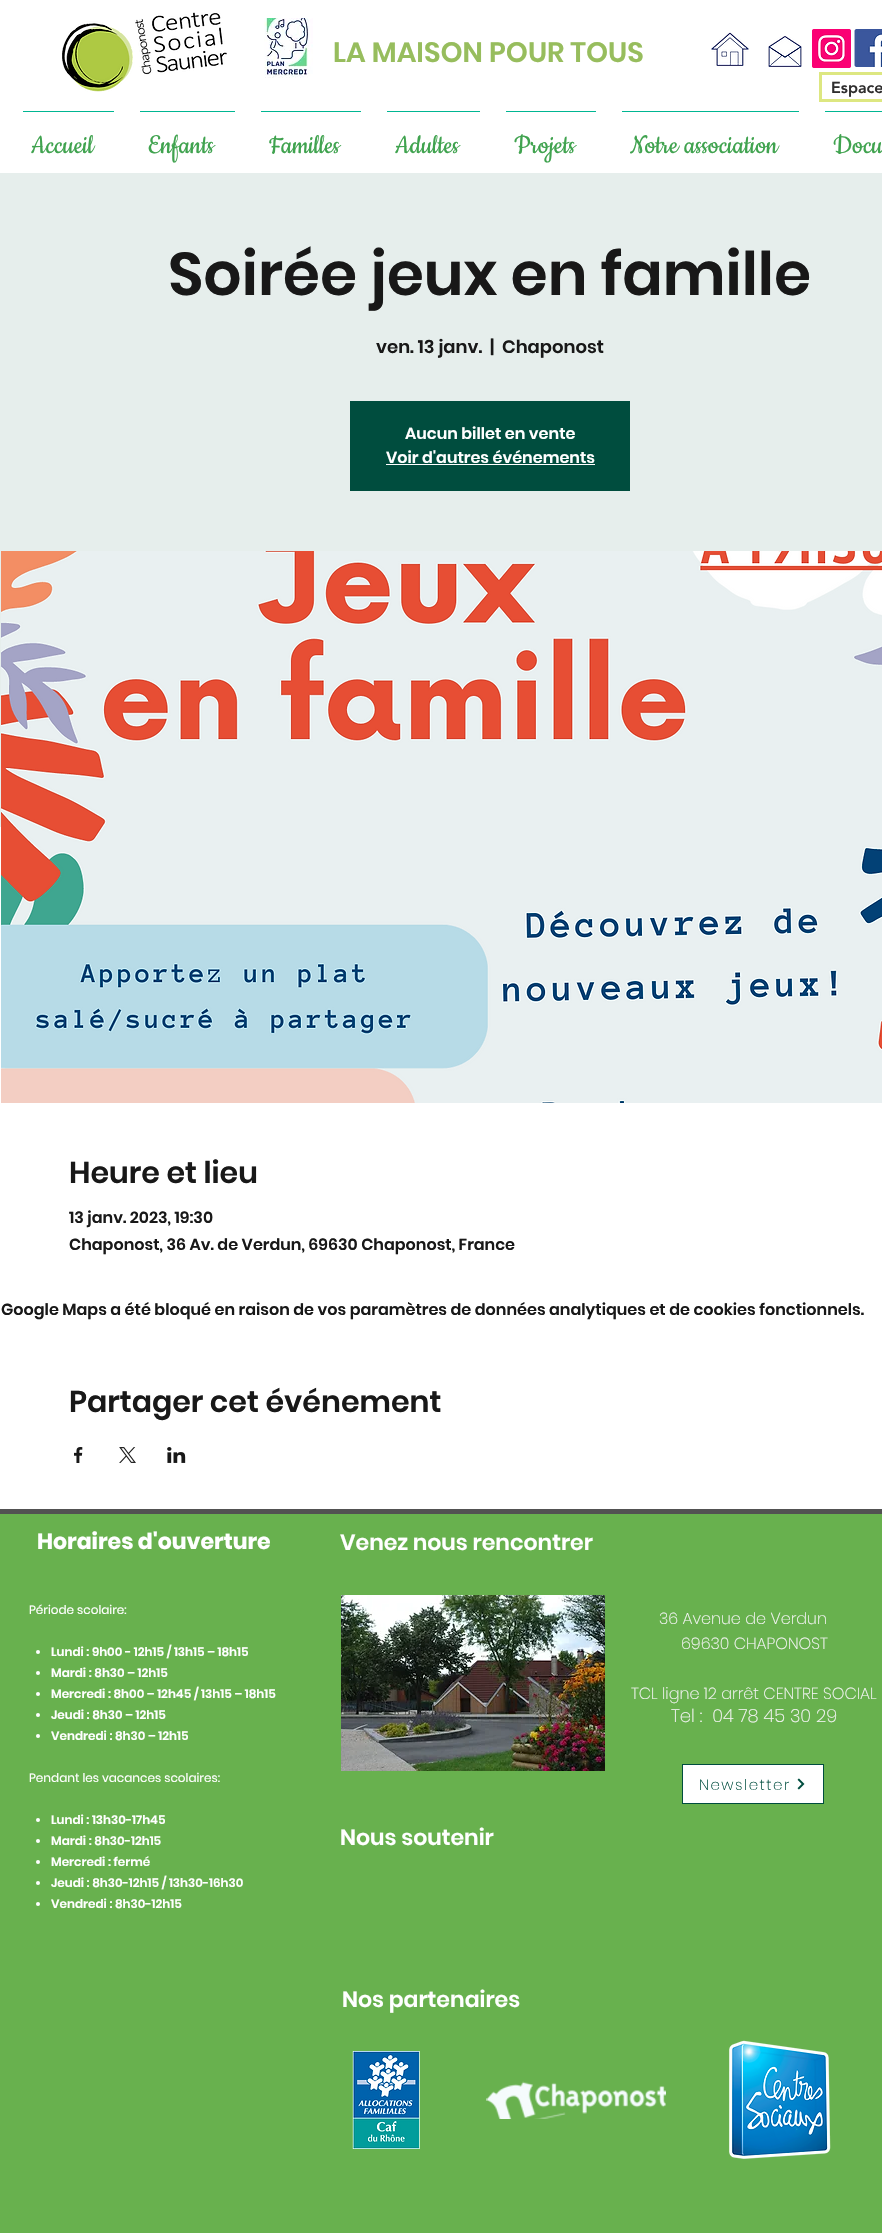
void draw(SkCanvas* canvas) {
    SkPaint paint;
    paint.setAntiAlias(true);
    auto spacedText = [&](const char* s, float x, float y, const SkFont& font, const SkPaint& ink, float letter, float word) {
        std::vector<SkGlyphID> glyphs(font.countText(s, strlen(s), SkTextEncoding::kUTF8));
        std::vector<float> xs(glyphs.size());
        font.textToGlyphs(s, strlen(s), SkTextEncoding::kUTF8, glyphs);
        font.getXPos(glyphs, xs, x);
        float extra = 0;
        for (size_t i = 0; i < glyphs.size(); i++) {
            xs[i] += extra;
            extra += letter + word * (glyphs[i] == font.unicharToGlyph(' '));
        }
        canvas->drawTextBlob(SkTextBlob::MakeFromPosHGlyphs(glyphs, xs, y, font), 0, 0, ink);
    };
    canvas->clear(0xFFFFFFFF);
    canvas->drawImageRect(SkImages::DeferredFromEncodedData(SkData::MakeFromFileName("img1.png")), SkRect::MakeXYWH(62, 12, 165, 80), SkSamplingOptions());
    canvas->drawImageRect(SkImages::DeferredFromEncodedData(SkData::MakeFromFileName("img2.png")), SkRect::MakeXYWH(264, 18, 49, 60), SkSamplingOptions());
    SkFont font1(fontMgr->matchFamilyStyle("Poppins", SkFontStyle(600, SkFontStyle::kNormal_Width, SkFontStyle::kUpright_Slant)), 28);
    font1.setSubpixel(true);
    paint.setColor(0xFF97BD5D);
    canvas->drawString("LA MAISON POUR TOUS", 333, 62, font1, paint);
    canvas->drawImageRect(SkImages::DeferredFromEncodedData(SkData::MakeFromFileName("img3.png")), SkRect::MakeXYWH(711, 32, 38, 34), SkSamplingOptions());
    canvas->drawImageRect(SkImages::DeferredFromEncodedData(SkData::MakeFromFileName("img4.png")), SkRect::MakeXYWH(768, 36, 34, 31), SkSamplingOptions());
    canvas->drawImageRect(SkImages::DeferredFromEncodedData(SkData::MakeFromFileName("img5.png")), SkRect::MakeXYWH(812, 29, 39, 39), SkSamplingOptions());
    canvas->drawImageRect(SkImages::DeferredFromEncodedData(SkData::MakeFromFileName("img6.png")), SkRect::MakeXYWH(854, 29, 28, 38), SkSamplingOptions());
    paint.setStyle(SkPaint::kStroke_Style);
    paint.setStrokeWidth(3);
    paint.setColor(0xFFDDE781);
    canvas->drawRect(SkRect::MakeXYWH(820.5f, 73.5f, 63, 27), paint);
    SkFont font2(fontMgr->matchFamilyStyle("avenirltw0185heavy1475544", SkFontStyle(900, SkFontStyle::kNormal_Width, SkFontStyle::kUpright_Slant)), 16);
    font2.setSubpixel(true);
    paint.setStyle(SkPaint::kFill_Style);
    paint.setColor(0xFF2F2E2E);
    canvas->drawString("Espace", 831, 93, font2, paint);
    paint.setColor(0xFF00B692);
    canvas->drawRect(SkRect::MakeXYWH(23, 111, 91, 1), paint);
    SkFont font3(fontMgr->matchFamilyStyle("Cookie", SkFontStyle::Normal()), 30);
    font3.setSubpixel(true);
    paint.setColor(0xFF40A34F);
    canvas->drawString("Accueil", 31, 153, font3, paint);
    paint.setColor(0xFF00B692);
    canvas->drawRect(SkRect::MakeXYWH(140, 111, 95, 1), paint);
    paint.setColor(0xFF40A34F);
    canvas->drawString("Enfants", 148, 153, font3, paint);
    paint.setColor(0xFF00B692);
    canvas->drawRect(SkRect::MakeXYWH(261, 111, 100, 1), paint);
    paint.setColor(0xFF40A34F);
    canvas->drawString("Familles", 269, 153, font3, paint);
    paint.setColor(0xFF00B692);
    canvas->drawRect(SkRect::MakeXYWH(387, 111, 93, 1), paint);
    paint.setColor(0xFF40A34F);
    canvas->drawString("Adultes", 395, 153, font3, paint);
    paint.setColor(0xFF00B692);
    canvas->drawRect(SkRect::MakeXYWH(506, 111, 90, 1), paint);
    paint.setColor(0xFF40A34F);
    canvas->drawString("Projets", 514, 153, font3, paint);
    paint.setColor(0xFF00B692);
    canvas->drawRect(SkRect::MakeXYWH(622, 111, 177, 1), paint);
    paint.setColor(0xFF40A34F);
    canvas->drawString("Notre association", 630, 153, font3, paint);
    paint.setColor(0xFF00B692);
    canvas->drawRect(SkRect::MakeXYWH(825, 111, 57, 1), paint);
    paint.setColor(0xFF40A34F);
    canvas->drawString("Docu", 833, 153, font3, paint);
    paint.setColor(0xFFE6EEEC);
    canvas->drawRect(SkRect::MakeXYWH(0, 173, 882, 654), paint);
    SkFont font4(fontMgr->matchFamilyStyle("Poppins", SkFontStyle(600, SkFontStyle::kNormal_Width, SkFontStyle::kUpright_Slant)), 60);
    font4.setSubpixel(true);
    paint.setColor(0xFF181818);
    canvas->drawString("Soirée jeux en famille", 168, 295, font4, paint);
    SkFont font5(fontMgr->matchFamilyStyle("Poppins", SkFontStyle(600, SkFontStyle::kNormal_Width, SkFontStyle::kUpright_Slant)), 18);
    font5.setSubpixel(true);
    canvas->drawString("ven. 13 janv.", 376, 353, font5, paint);
    canvas->drawString("|", 490, 353, font5, paint);
    canvas->drawString("Chaponost", 502, 353, font5, paint);
    paint.setColor(0xFF004D3E);
    canvas->drawRect(SkRect::MakeXYWH(350, 401, 280, 90), paint);
    SkFont font6(fontMgr->matchFamilyStyle("Poppins", SkFontStyle(600, SkFontStyle::kNormal_Width, SkFontStyle::kUpright_Slant)), 16);
    font6.setSubpixel(true);
    paint.setColor(0xFFFFFFFF);
    canvas->drawString("Aucun billet en vente", 405, 439, font6, paint);
    canvas->drawString("Voir d'autres événements", 386, 463, font6, paint);
    canvas->drawRect(SkRect::MakeXYWH(386, 464, 209, 1), paint);
    canvas->drawImageRect(SkImages::DeferredFromEncodedData(SkData::MakeFromFileName("img7.png")), SkRect::MakeXYWH(1, 551, 881, 552), SkSamplingOptions());
    SkFont font7(fontMgr->matchFamilyStyle("Poppins", SkFontStyle(600, SkFontStyle::kNormal_Width, SkFontStyle::kUpright_Slant)), 30);
    font7.setSubpixel(true);
    paint.setColor(0xFF181818);
    canvas->drawString("Heure et lieu", 69, 1183, font7, paint);
    canvas->drawString("13 janv. 2023, 19:30", 69, 1223, font6, paint);
    canvas->drawString("Chaponost, 36 Av. de Verdun, 69630 Chaponost, France", 69, 1250, font6, paint);
    canvas->drawString("Google Maps a été bloqué en raison de vos paramètres de données analytiques et de cookies fonctionnels.", 1, 1315, font6, paint);
    canvas->drawString("Partager cet événement", 69, 1412, font7, paint);
    canvas->drawImageRect(SkImages::DeferredFromEncodedData(SkData::MakeFromFileName("img8.png")), SkRect::MakeXYWH(74, 1447, 9, 16), SkSamplingOptions());
    canvas->drawImageRect(SkImages::DeferredFromEncodedData(SkData::MakeFromFileName("img9.png")), SkRect::MakeXYWH(119, 1447, 17, 16), SkSamplingOptions());
    canvas->drawImageRect(SkImages::DeferredFromEncodedData(SkData::MakeFromFileName("img10.png")), SkRect::MakeXYWH(167, 1447, 19, 16), SkSamplingOptions());
    paint.setColor(0xFF68B14E);
    canvas->drawRect(SkRect::MakeXYWH(0, 1514, 882, 719), paint);
    paint.setColor(0xFF525252);
    canvas->drawRect(SkRect::MakeXYWH(0, 1509, 882, 5), paint);
    SkFont font8(fontMgr->matchFamilyStyle("Poppins", SkFontStyle::Bold()), 22);
    font8.setSubpixel(true);
    paint.setColor(0xFFFFFFFF);
    canvas->drawString("Horaires d'ouverture", 37, 1549, font8, paint);
    SkFont font9(fontMgr->matchFamilyStyle("Poppins", SkFontStyle(600, SkFontStyle::kNormal_Width, SkFontStyle::kUpright_Slant)), 22);
    font9.setSubpixel(true);
    canvas->drawString("Venez nous rencontrer", 340, 1550, font9, paint);
    SkFont font10(fontMgr->matchFamilyStyle("Poppins", SkFontStyle::Normal()), 12);
    font10.setSubpixel(true);
    canvas->drawString("Période scolaire:", 29, 1614, font10, paint);
    canvas->drawCircle(38, 1652, 2, paint);
    SkFont font11(fontMgr->matchFamilyStyle("Poppins", SkFontStyle(600, SkFontStyle::kNormal_Width, SkFontStyle::kUpright_Slant)), 12);
    font11.setSubpixel(true);
    canvas->drawString("Lundi : 9h00 - 12h15 / 13h15 – 18h15", 51, 1656, font11, paint);
    canvas->drawCircle(38, 1673, 2, paint);
    canvas->drawString("Mardi : 8h30 – 12h15", 51, 1677, font11, paint);
    canvas->drawCircle(38, 1694, 2, paint);
    canvas->drawString("Mercredi : 8h00 – 12h45 / 13h15 – 18h15", 51, 1698, font11, paint);
    canvas->drawCircle(38, 1715, 2, paint);
    canvas->drawString("Jeudi : 8h30 – 12h15", 51, 1719, font11, paint);
    canvas->drawCircle(38, 1736, 2, paint);
    canvas->drawString("Vendredi : 8h30 – 12h15", 51, 1740, font11, paint);
    canvas->drawString("Pendant les vacances scolaires:", 29, 1782, font10, paint);
    canvas->drawCircle(38, 1820, 2, paint);
    canvas->drawString("Lundi : 13h30-17h45", 51, 1824, font11, paint);
    canvas->drawCircle(38, 1841, 2, paint);
    canvas->drawString("Mardi : 8h30-12h15", 51, 1845, font11, paint);
    canvas->drawCircle(38, 1862, 2, paint);
    canvas->drawString("Mercredi : fermé", 51, 1866, font11, paint);
    canvas->drawCircle(38, 1883, 2, paint);
    canvas->drawString("Jeudi : 8h30-12h15 / 13h30-16h30", 51, 1887, font11, paint);
    canvas->drawCircle(38, 1904, 2, paint);
    canvas->drawString("Vendredi : 8h30-12h15", 51, 1908, font11, paint);
    canvas->drawImageRect(SkImages::DeferredFromEncodedData(SkData::MakeFromFileName("img11.png")), SkRect::MakeXYWH(341, 1595, 264, 176), SkSamplingOptions());
    SkFont font12(fontMgr->matchFamilyStyle("Poppins", SkFontStyle(200, SkFontStyle::kNormal_Width, SkFontStyle::kUpright_Slant)), 16);
    font12.setSubpixel(true);
    paint.setColor(0xFFF4F4F4);
    canvas->drawString("36 Avenue de Verdun", 659, 1624, font12, paint);
    canvas->drawString("69630 CHAPONOST", 681, 1649, font12, paint);
    canvas->drawString("TCL ligne 12 arrêt CENTRE SOCIAL", 631, 1699, font12, paint);
    SkFont font13(fontMgr->matchFamilyStyle("Poppins", SkFontStyle(200, SkFontStyle::kNormal_Width, SkFontStyle::kUpright_Slant)), 18);
    font13.setSubpixel(true);
    canvas->drawString("Tel :  04 78 45 30 29", 671, 1722, font13, paint);
    paint.setColor(0xFFFFFFFF);
    canvas->drawRect(SkRect::MakeXYWH(682.5f, 1764.5f, 141, 39), paint);
    paint.setStyle(SkPaint::kStroke_Style);
    paint.setStrokeWidth(1);
    paint.setColor(0xFF004D3E);
    canvas->drawRect(SkRect::MakeXYWH(682.5f, 1764.5f, 141, 39), paint);
    SkFont font14(fontMgr->matchFamilyStyle("Poppins", SkFontStyle(200, SkFontStyle::kNormal_Width, SkFontStyle::kUpright_Slant)), 15);
    font14.setSubpixel(true);
    paint.setStyle(SkPaint::kFill_Style);
    spacedText("Newsletter", 699, 1790, font14, paint, 1.5f, 0);
    canvas->drawImageRect(SkImages::DeferredFromEncodedData(SkData::MakeFromFileName("img12.png")), SkRect::MakeXYWH(797, 1778, 8, 12), SkSamplingOptions());
    paint.setColor(0xFFFFFFFF);
    canvas->drawString("Nous soutenir", 340, 1845, font9, paint);
    canvas->drawString("Nos partenaires", 342, 2007, font9, paint);
    canvas->drawImageRect(SkImages::DeferredFromEncodedData(SkData::MakeFromFileName("img13.png")), SkRect::MakeXYWH(352, 2051, 68, 98), SkSamplingOptions());
    canvas->drawImageRect(SkImages::DeferredFromEncodedData(SkData::MakeFromFileName("img14.png")), SkRect::MakeXYWH(486, 2081, 180, 38), SkSamplingOptions());
    canvas->drawImageRect(SkImages::DeferredFromEncodedData(SkData::MakeFromFileName("img15.png")), SkRect::MakeXYWH(729, 2040, 102, 119), SkSamplingOptions());
}
